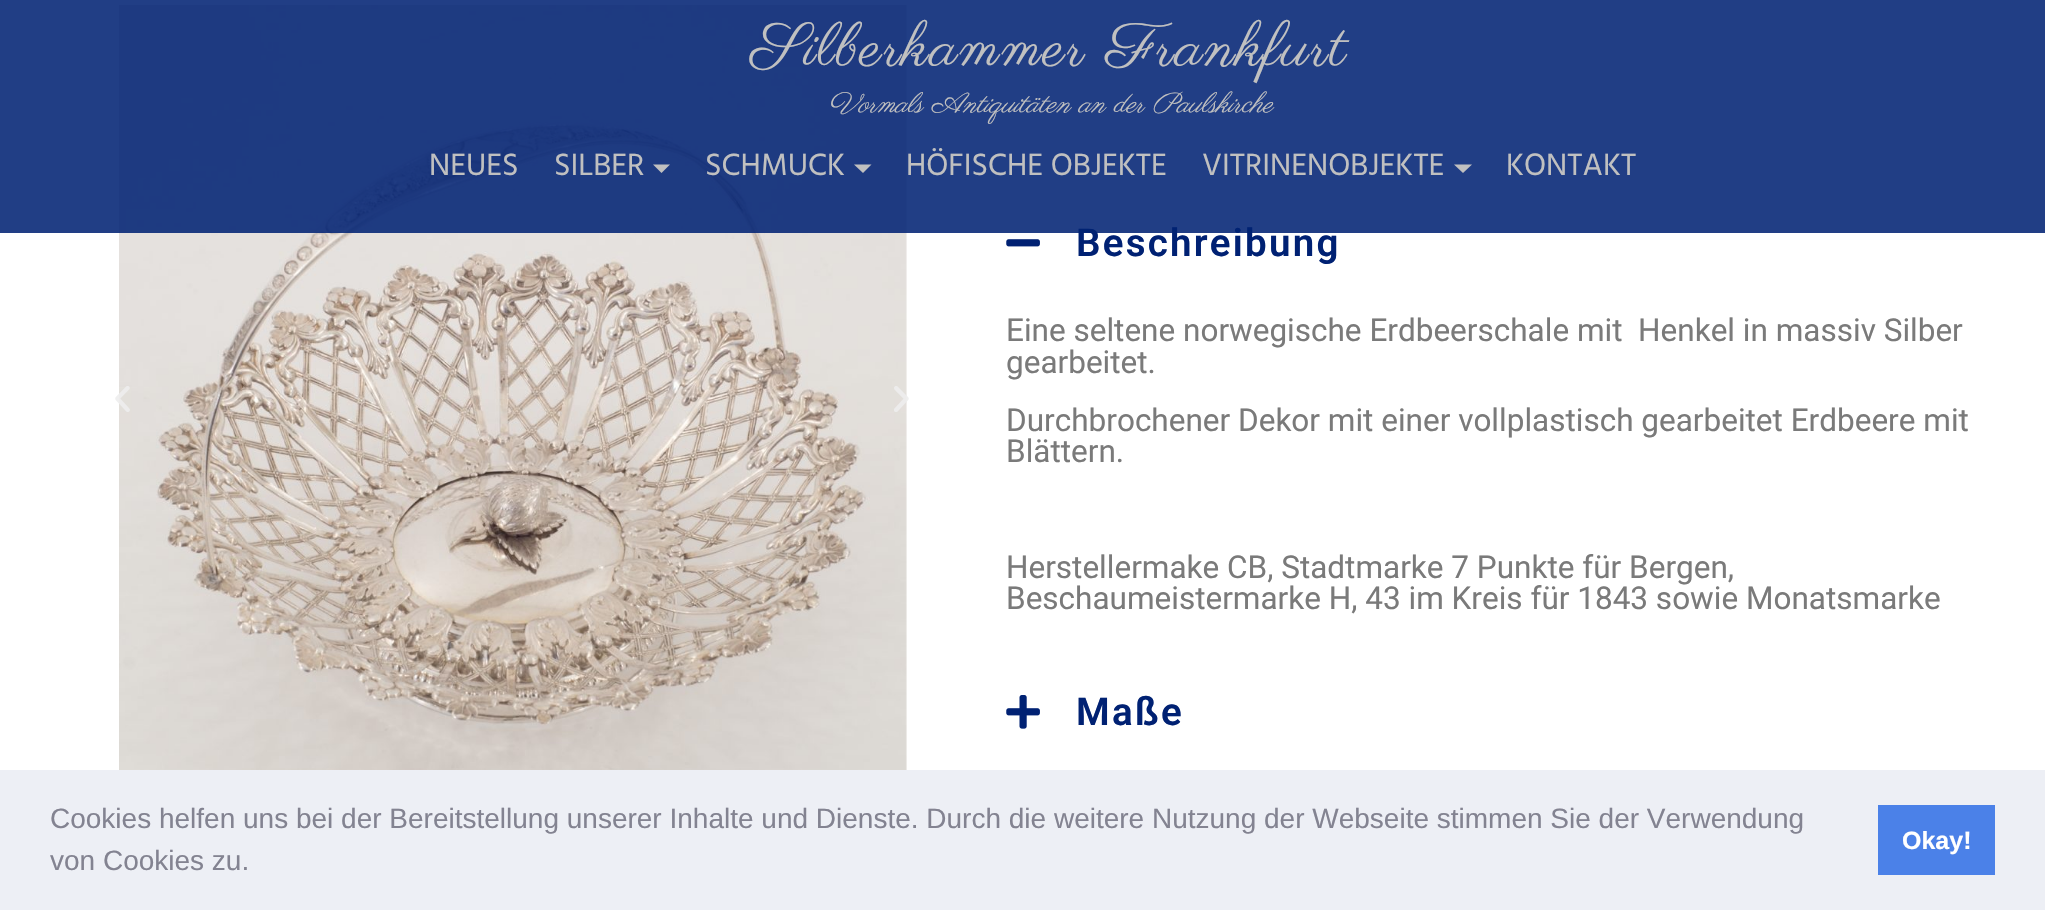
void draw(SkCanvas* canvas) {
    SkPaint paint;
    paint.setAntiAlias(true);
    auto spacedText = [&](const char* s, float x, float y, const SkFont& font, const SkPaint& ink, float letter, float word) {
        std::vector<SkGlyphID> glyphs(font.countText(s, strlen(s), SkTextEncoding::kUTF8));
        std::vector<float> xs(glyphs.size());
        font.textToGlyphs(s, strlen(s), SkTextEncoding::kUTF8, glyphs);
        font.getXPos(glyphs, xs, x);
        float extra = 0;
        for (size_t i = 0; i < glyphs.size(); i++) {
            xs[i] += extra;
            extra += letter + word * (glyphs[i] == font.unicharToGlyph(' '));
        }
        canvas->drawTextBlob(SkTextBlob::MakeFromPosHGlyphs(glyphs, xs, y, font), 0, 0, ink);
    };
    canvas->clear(0xFFFFFFFF);
    canvas->drawImageRect(SkImages::DeferredFromEncodedData(SkData::MakeFromFileName("img1.png")), SkRect::MakeXYWH(119, 5, 788, 765), SkSamplingOptions());
    SkFont font1(fontMgr->matchFamilyStyle("Roboto", SkFontStyle(600, SkFontStyle::kNormal_Width, SkFontStyle::kUpright_Slant)), 38.5f);
    font1.setSubpixel(true);
    paint.setColor(0xFF002173);
    spacedText("Beschreibung", 1076, 256, font1, paint, 2.25f, 0);
    paint.setColor(0xDE002173);
    canvas->drawRect(SkRect::MakeXYWH(0, 0, 2045, 233), paint);
    SkFont font2(fontMgr->matchFamilyStyle("Parisienne", SkFontStyle::Normal()), 61.25f);
    font2.setSubpixel(true);
    paint.setColor(0xFFC0C0C0);
    spacedText("Silberkammer Frankfurt", 751, 65, font2, paint, 1.75f, 0);
    SkFont font3(fontMgr->matchFamilyStyle("Parisienne", SkFontStyle::Italic()), 28);
    font3.setSubpixel(true);
    canvas->drawString("Vormals Antiquitäten an der Paulskirche", 828, 112, font3, paint);
    SkFont font4(fontMgr->matchFamilyStyle("Hind", SkFontStyle::Normal()), 31.5f);
    font4.setSubpixel(true);
    canvas->drawString("NEUES", 429, 175, font4, paint);
    canvas->drawString("SILBER", 554, 175, font4, paint);
    canvas->drawPath(SkPathBuilder().moveTo(653, 164.5f).lineTo(670, 164.5f).lineTo(661.5f, 173).close().detach(), paint);
    canvas->drawString("SCHMUCK", 705, 175, font4, paint);
    canvas->drawPath(SkPathBuilder().moveTo(854, 164.5f).lineTo(871.5f, 164.5f).lineTo(863, 173).close().detach(), paint);
    canvas->drawString("HÖFISCHE OBJEKTE", 906, 175, font4, paint);
    canvas->drawString("VITRINENOBJEKTE", 1202, 175, font4, paint);
    canvas->drawPath(SkPathBuilder().moveTo(1454, 164.5f).lineTo(1472, 164.5f).lineTo(1463, 173).close().detach(), paint);
    canvas->drawString("KONTAKT", 1506, 175, font4, paint);
    canvas->drawImageRect(SkImages::DeferredFromEncodedData(SkData::MakeFromFileName("img2.png")), SkRect::MakeXYWH(115, 386, 15, 26), SkSamplingOptions());
    canvas->drawImageRect(SkImages::DeferredFromEncodedData(SkData::MakeFromFileName("img3.png")), SkRect::MakeXYWH(894, 386, 15, 26), SkSamplingOptions());
    canvas->drawImageRect(SkImages::DeferredFromEncodedData(SkData::MakeFromFileName("img4.png")), SkRect::MakeXYWH(1006, 239, 34, 8), SkSamplingOptions());
    SkFont font5(fontMgr->matchFamilyStyle("Roboto", SkFontStyle::Normal()), 31.5f);
    font5.setSubpixel(true);
    paint.setColor(0xFF7A7A7A);
    canvas->drawString("Eine seltene norwegische Erdbeerschale mit  Henkel in massiv Silber", 1006, 341, font5, paint);
    canvas->drawString("gearbeitet.", 1006, 373, font5, paint);
    canvas->drawString("Durchbrochener Dekor mit einer vollplastisch gearbeitet Erdbeere mit", 1006, 431, font5, paint);
    canvas->drawString("Blättern.", 1006, 462, font5, paint);
    canvas->drawString("Herstellermake CB, Stadtmarke 7 Punkte für Bergen,", 1006, 578, font5, paint);
    canvas->drawString("Beschaumeistermarke H, 43 im Kreis für 1843 sowie Monatsmarke", 1006, 609, font5, paint);
    canvas->drawImageRect(SkImages::DeferredFromEncodedData(SkData::MakeFromFileName("img5.png")), SkRect::MakeXYWH(1006, 695, 34, 34), SkSamplingOptions());
    paint.setColor(0xFF002173);
    spacedText("Maße", 1076, 725, font1, paint, 2.25f, 0);
    paint.setColor(0xFFEDEFF5);
    canvas->drawRect(SkRect::MakeXYWH(0, 770, 2045, 140), paint);
    SkFont font6(fontMgr->matchFamilyStyle("Liberation Sans", SkFontStyle::Normal()), 28);
    font6.setSubpixel(true);
    paint.setColor(0xFF838391);
    canvas->drawString("Cookies helfen uns bei der Bereitstellung unserer Inhalte und Dienste. Durch die weitere Nutzung der Webseite stimmen Sie der Verwendung", 50, 828, font6, paint);
    canvas->drawString("von Cookies zu.", 50, 870, font6, paint);
    paint.setColor(0xFF4B81E8);
    canvas->drawRect(SkRect::MakeXYWH(1878, 805, 117, 70), paint);
    SkFont font7(fontMgr->matchFamilyStyle("Liberation Sans", SkFontStyle::Bold()), 25);
    font7.setSubpixel(true);
    paint.setColor(0xFFFFFFFF);
    canvas->drawString("Okay!", 1902, 849, font7, paint);
}
